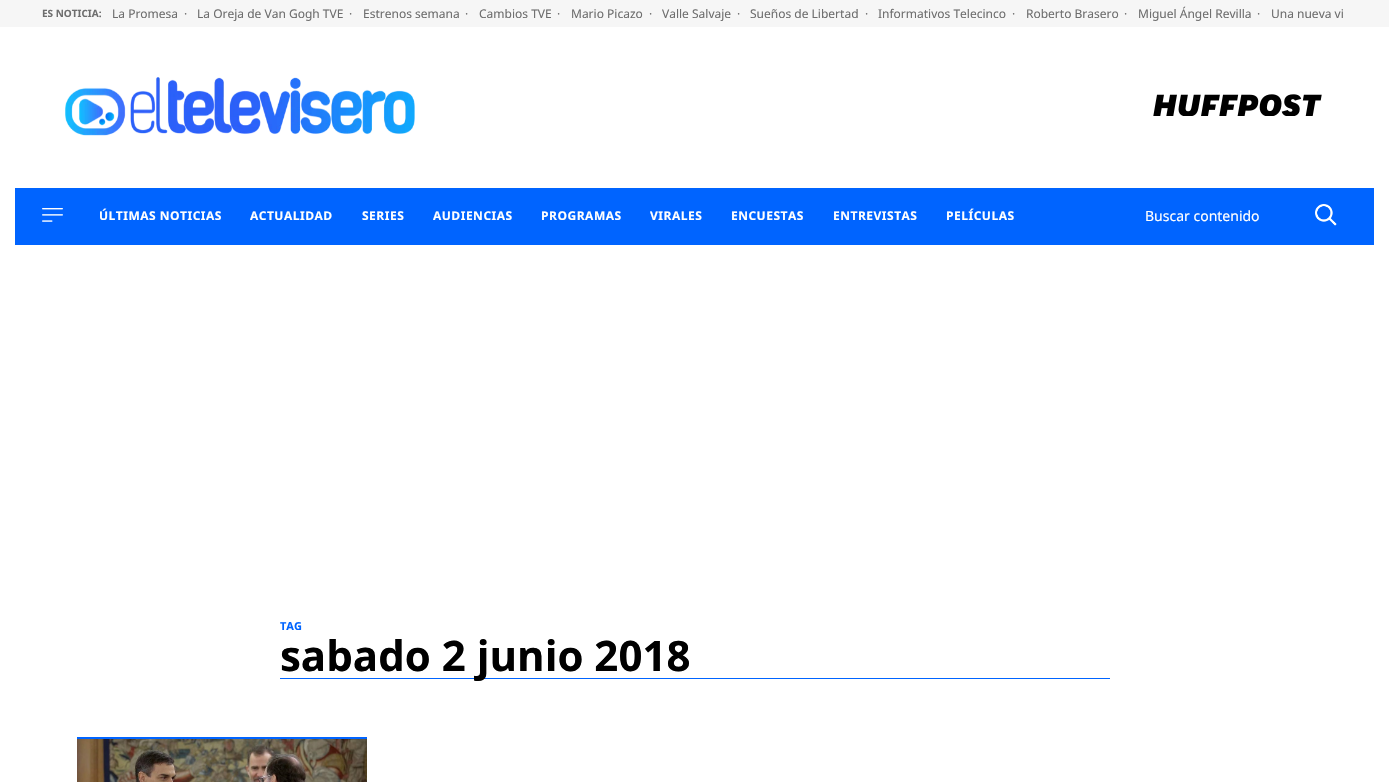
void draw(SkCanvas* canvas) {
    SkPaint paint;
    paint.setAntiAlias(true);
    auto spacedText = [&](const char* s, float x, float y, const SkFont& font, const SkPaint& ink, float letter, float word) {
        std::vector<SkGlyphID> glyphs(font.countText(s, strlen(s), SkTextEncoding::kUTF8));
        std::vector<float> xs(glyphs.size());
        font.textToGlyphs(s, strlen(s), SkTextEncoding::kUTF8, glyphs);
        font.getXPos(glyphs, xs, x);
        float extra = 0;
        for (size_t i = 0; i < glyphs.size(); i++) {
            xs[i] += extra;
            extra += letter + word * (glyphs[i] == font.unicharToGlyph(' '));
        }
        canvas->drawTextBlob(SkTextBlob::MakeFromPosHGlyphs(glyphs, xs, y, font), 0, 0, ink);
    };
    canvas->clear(0xFFFFFFFF);
    paint.setColor(0xFFF6F6F6);
    canvas->drawRect(SkRect::MakeXYWH(0, 0, 1389, 27), paint);
    SkFont font1(fontMgr->matchFamilyStyle("Noto Sans", SkFontStyle::Bold()), 10);
    font1.setSubpixel(true);
    paint.setColor(0xFF6E6E6E);
    canvas->drawString("ES NOTICIA:", 42, 17, font1, paint);
    SkFont font2(fontMgr->matchFamilyStyle("Noto Sans", SkFontStyle::Normal()), 12);
    font2.setSubpixel(true);
    canvas->drawString("La Promesa", 112, 18, font2, paint);
    canvas->drawString("·", 184, 18, font2, paint);
    canvas->drawString("La Oreja de Van Gogh TVE", 197, 18, font2, paint);
    canvas->drawString("·", 349, 18, font2, paint);
    canvas->drawString("Estrenos semana", 363, 18, font2, paint);
    canvas->drawString("·", 465, 18, font2, paint);
    canvas->drawString("Cambios TVE", 479, 18, font2, paint);
    canvas->drawString("·", 557, 18, font2, paint);
    canvas->drawString("Mario Picazo", 571, 18, font2, paint);
    canvas->drawString("·", 649, 18, font2, paint);
    canvas->drawString("Valle Salvaje", 662, 18, font2, paint);
    canvas->drawString("·", 737, 18, font2, paint);
    canvas->drawString("Sueños de Libertad", 750, 18, font2, paint);
    canvas->drawString("·", 865, 18, font2, paint);
    canvas->drawString("Informativos Telecinco", 878, 18, font2, paint);
    canvas->drawString("·", 1012, 18, font2, paint);
    canvas->drawString("Roberto Brasero", 1026, 18, font2, paint);
    canvas->drawString("·", 1124, 18, font2, paint);
    canvas->drawString("Miguel Ángel Revilla", 1138, 18, font2, paint);
    canvas->drawString("·", 1257, 18, font2, paint);
    canvas->drawString("Una nueva vi", 1271, 18, font2, paint);
    canvas->drawImageRect(SkImages::DeferredFromEncodedData(SkData::MakeFromFileName("img1.png")), SkRect::MakeXYWH(65, 77, 350, 59), SkSamplingOptions());
    canvas->drawImageRect(SkImages::DeferredFromEncodedData(SkData::MakeFromFileName("img2.png")), SkRect::MakeXYWH(1153, 94, 169, 22), SkSamplingOptions());
    paint.setColor(0xFF0064FF);
    canvas->drawRect(SkRect::MakeXYWH(15, 188, 1359, 57), paint);
    canvas->drawImageRect(SkImages::DeferredFromEncodedData(SkData::MakeFromFileName("img3.png")), SkRect::MakeXYWH(42, 208, 21, 14), SkSamplingOptions());
    SkFont font3(fontMgr->matchFamilyStyle("Noto Sans", SkFontStyle::Bold()), 12);
    font3.setSubpixel(true);
    paint.setColor(0xFFFFFFFF);
    spacedText("ÚLTIMAS NOTICIAS", 99, 220, font3, paint, 0.5f, 0);
    spacedText("ACTUALIDAD", 250, 220, font3, paint, 0.5f, 0);
    spacedText("SERIES", 362, 220, font3, paint, 0.5f, 0);
    spacedText("AUDIENCIAS", 433, 220, font3, paint, 0.5f, 0);
    spacedText("PROGRAMAS", 541, 220, font3, paint, 0.5f, 0);
    spacedText("VIRALES", 650, 220, font3, paint, 0.5f, 0);
    spacedText("ENCUESTAS", 731, 220, font3, paint, 0.5f, 0);
    spacedText("ENTREVISTAS", 833, 220, font3, paint, 0.5f, 0);
    spacedText("PELÍCULAS", 946, 220, font3, paint, 0.5f, 0);
    SkFont font4(fontMgr->matchFamilyStyle("Noto Sans", SkFontStyle::Normal()), 14);
    font4.setSubpixel(true);
    canvas->drawString("Buscar contenido", 1145, 221, font4, paint);
    canvas->drawImageRect(SkImages::DeferredFromEncodedData(SkData::MakeFromFileName("img4.png")), SkRect::MakeXYWH(1315, 204, 22, 22), SkSamplingOptions());
    paint.setColor(0xFF0064FF);
    canvas->drawRect(SkRect::MakeXYWH(280, 678, 830, 1), paint);
    SkFont font5(fontMgr->matchFamilyStyle("Noto Sans", SkFontStyle::Bold()), 11);
    font5.setSubpixel(true);
    canvas->drawString("TAG", 280, 630, font5, paint);
    SkFont font6(fontMgr->matchFamilyStyle("Noto Sans", SkFontStyle::Bold()), 42);
    font6.setSubpixel(true);
    paint.setColor(0xFF000000);
    canvas->drawString("sabado 2 junio 2018", 280, 671, font6, paint);
    paint.setColor(0xFF0064FF);
    canvas->drawRect(SkRect::MakeXYWH(77, 737, 290, 2), paint);
    canvas->drawImageRect(SkImages::DeferredFromEncodedData(SkData::MakeFromFileName("img5.png")), SkRect::MakeXYWH(77, 739, 290, 43), SkSamplingOptions());
}
